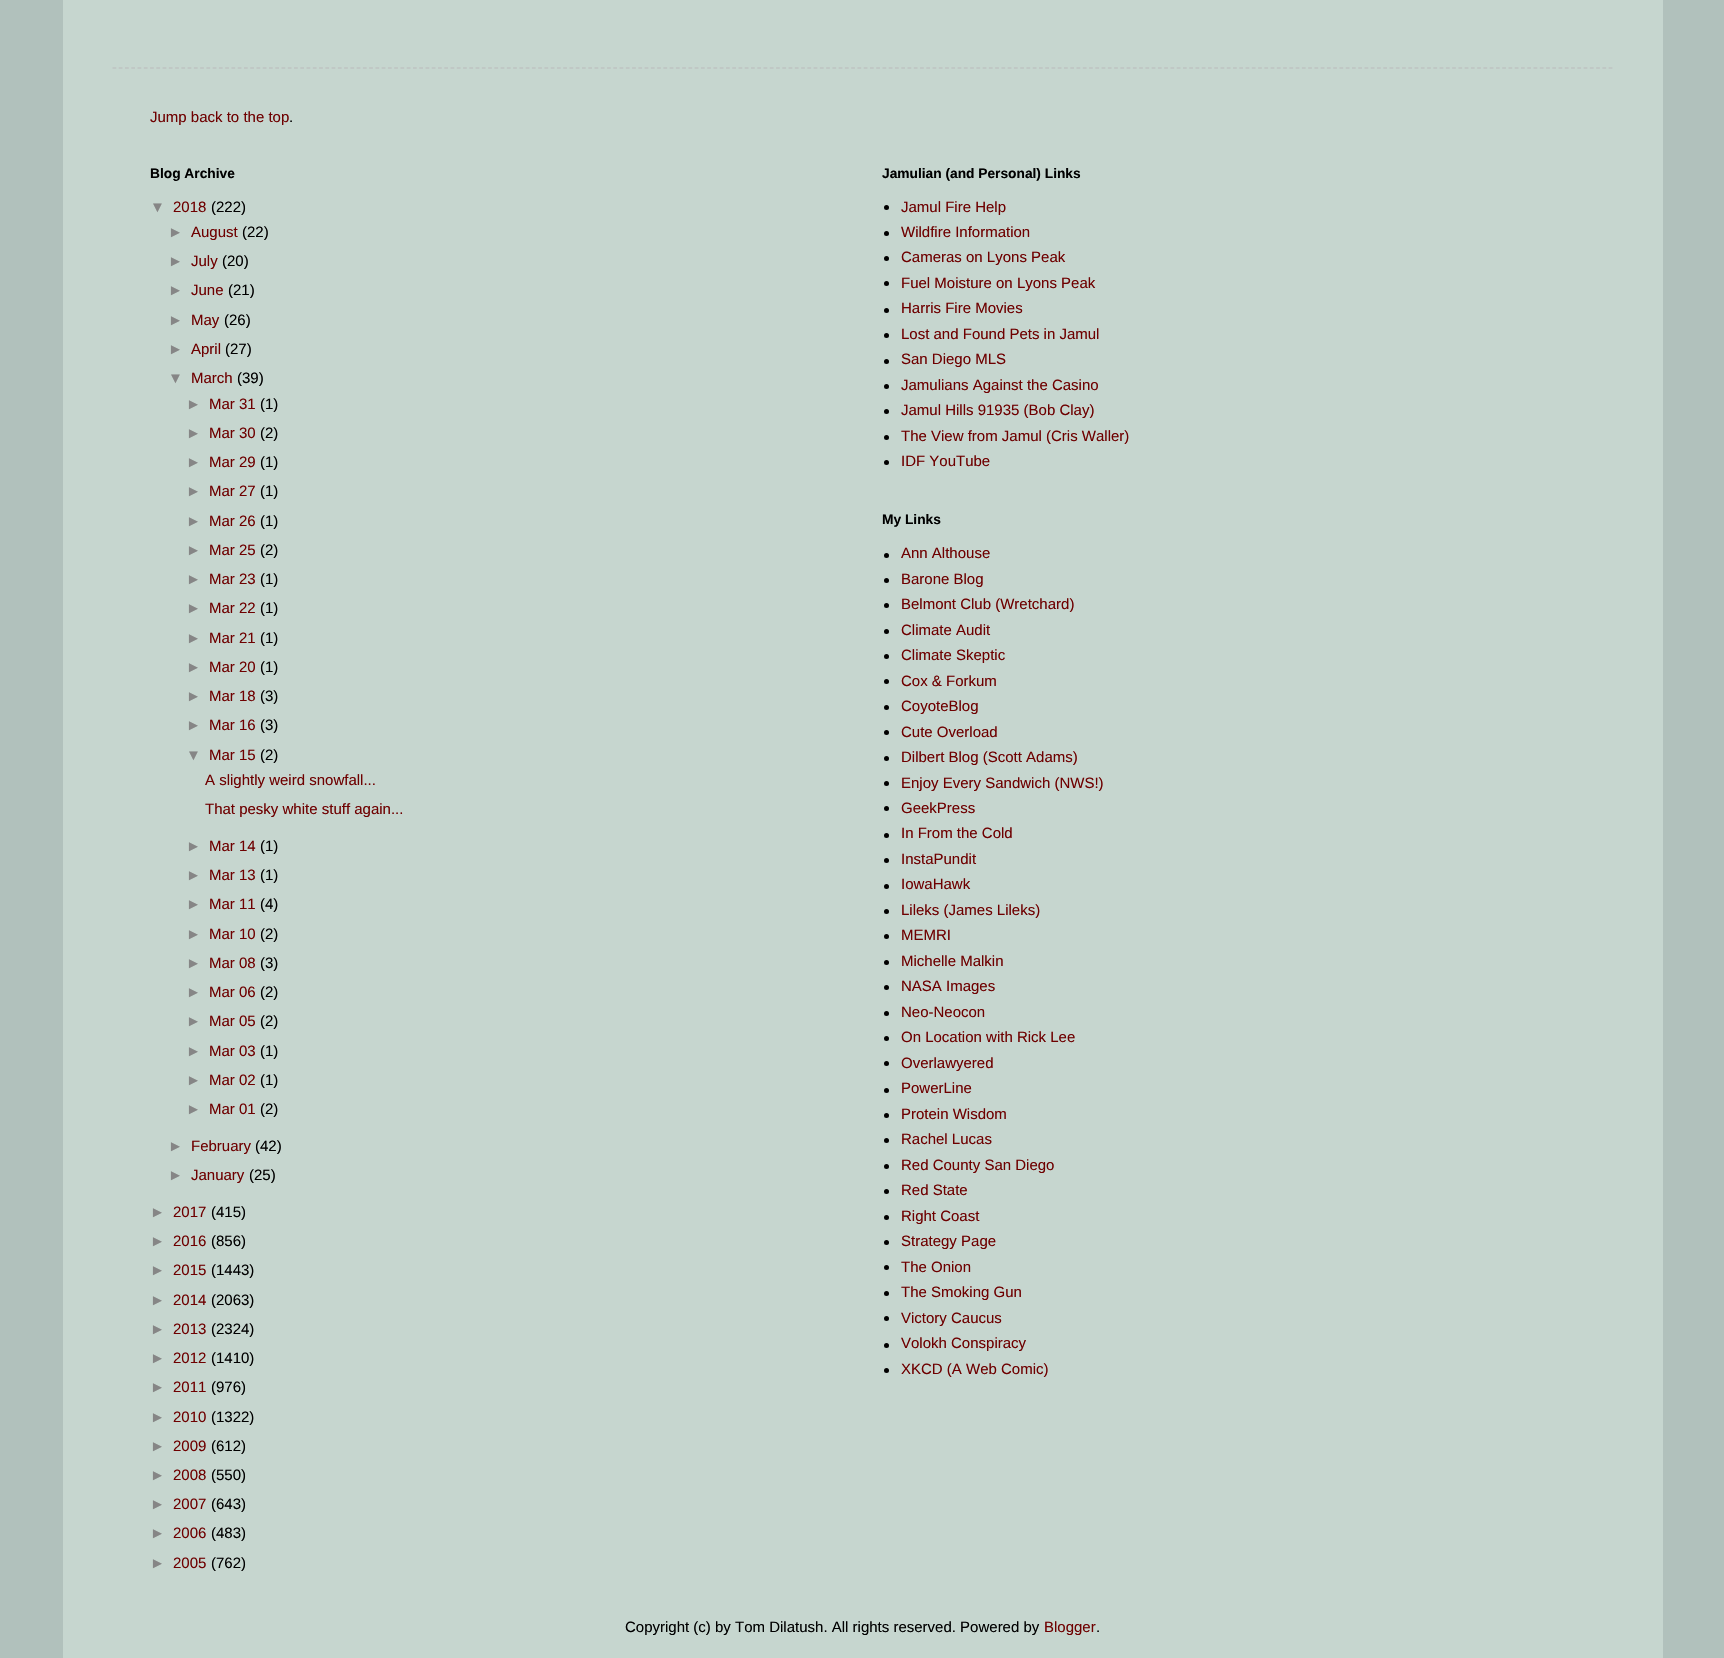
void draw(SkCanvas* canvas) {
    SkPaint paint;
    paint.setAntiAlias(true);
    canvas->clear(0xFFB1C1BC);
    paint.setColor(0xFFC6D6CF);
    canvas->drawRect(SkRect::MakeXYWH(63, 0, 1600, 1658), paint);
    paint.setStyle(SkPaint::kStroke_Style);
    paint.setStrokeWidth(1.2f);
    paint.setColor(0xFFBBBBBB);
    paint.setPathEffect(SkDashPathEffect::Make({{3.75f, 2.51f}}, 0));
    canvas->drawPath(SkPathBuilder().moveTo(112.5f, 68).lineTo(1612.5f, 68).detach(), paint);
    paint.setPathEffect(nullptr);
    SkFont font1(fontMgr->matchFamilyStyle("Liberation Sans", SkFontStyle::Normal()), 15);
    font1.setSubpixel(true);
    paint.setStyle(SkPaint::kFill_Style);
    paint.setColor(0xFF6E0000);
    canvas->drawString("Jump back to the top", 150, 122, font1, paint);
    paint.setColor(0xFF000000);
    canvas->drawString(".", 289, 122, font1, paint);
    SkFont font2(fontMgr->matchFamilyStyle("Liberation Sans", SkFontStyle::Bold()), 13.75f);
    font2.setSubpixel(true);
    canvas->drawString("Blog Archive", 150, 178, font2, paint);
    paint.setColor(0xFF868686);
    canvas->drawString("▼", 150, 212, font1, paint);
    paint.setColor(0xFF6E0000);
    canvas->drawString("2018", 173, 212, font1, paint);
    paint.setColor(0xFF000000);
    canvas->drawString("(222)", 211, 212, font1, paint);
    paint.setColor(0xFF868686);
    canvas->drawString("►", 168, 237, font1, paint);
    paint.setColor(0xFF6E0000);
    canvas->drawString("August", 191, 237, font1, paint);
    paint.setColor(0xFF000000);
    canvas->drawString("(22)", 242, 237, font1, paint);
    paint.setColor(0xFF868686);
    canvas->drawString("►", 168, 266, font1, paint);
    paint.setColor(0xFF6E0000);
    canvas->drawString("July", 191, 266, font1, paint);
    paint.setColor(0xFF000000);
    canvas->drawString("(20)", 222, 266, font1, paint);
    paint.setColor(0xFF868686);
    canvas->drawString("►", 168, 295, font1, paint);
    paint.setColor(0xFF6E0000);
    canvas->drawString("June", 191, 295, font1, paint);
    paint.setColor(0xFF000000);
    canvas->drawString("(21)", 228, 295, font1, paint);
    paint.setColor(0xFF868686);
    canvas->drawString("►", 168, 325, font1, paint);
    paint.setColor(0xFF6E0000);
    canvas->drawString("May", 191, 325, font1, paint);
    paint.setColor(0xFF000000);
    canvas->drawString("(26)", 224, 325, font1, paint);
    paint.setColor(0xFF868686);
    canvas->drawString("►", 168, 354, font1, paint);
    paint.setColor(0xFF6E0000);
    canvas->drawString("April", 191, 354, font1, paint);
    paint.setColor(0xFF000000);
    canvas->drawString("(27)", 225, 354, font1, paint);
    paint.setColor(0xFF868686);
    canvas->drawString("▼", 168, 383, font1, paint);
    paint.setColor(0xFF6E0000);
    canvas->drawString("March", 191, 383, font1, paint);
    paint.setColor(0xFF000000);
    canvas->drawString("(39)", 237, 383, font1, paint);
    paint.setColor(0xFF868686);
    canvas->drawString("►", 186, 409, font1, paint);
    paint.setColor(0xFF6E0000);
    canvas->drawString("Mar 31", 209, 409, font1, paint);
    paint.setColor(0xFF000000);
    canvas->drawString("(1)", 260, 409, font1, paint);
    paint.setColor(0xFF868686);
    canvas->drawString("►", 186, 438, font1, paint);
    paint.setColor(0xFF6E0000);
    canvas->drawString("Mar 30", 209, 438, font1, paint);
    paint.setColor(0xFF000000);
    canvas->drawString("(2)", 260, 438, font1, paint);
    paint.setColor(0xFF868686);
    canvas->drawString("►", 186, 467, font1, paint);
    paint.setColor(0xFF6E0000);
    canvas->drawString("Mar 29", 209, 467, font1, paint);
    paint.setColor(0xFF000000);
    canvas->drawString("(1)", 260, 467, font1, paint);
    paint.setColor(0xFF868686);
    canvas->drawString("►", 186, 496, font1, paint);
    paint.setColor(0xFF6E0000);
    canvas->drawString("Mar 27", 209, 496, font1, paint);
    paint.setColor(0xFF000000);
    canvas->drawString("(1)", 260, 496, font1, paint);
    paint.setColor(0xFF868686);
    canvas->drawString("►", 186, 526, font1, paint);
    paint.setColor(0xFF6E0000);
    canvas->drawString("Mar 26", 209, 526, font1, paint);
    paint.setColor(0xFF000000);
    canvas->drawString("(1)", 260, 526, font1, paint);
    paint.setColor(0xFF868686);
    canvas->drawString("►", 186, 555, font1, paint);
    paint.setColor(0xFF6E0000);
    canvas->drawString("Mar 25", 209, 555, font1, paint);
    paint.setColor(0xFF000000);
    canvas->drawString("(2)", 260, 555, font1, paint);
    paint.setColor(0xFF868686);
    canvas->drawString("►", 186, 584, font1, paint);
    paint.setColor(0xFF6E0000);
    canvas->drawString("Mar 23", 209, 584, font1, paint);
    paint.setColor(0xFF000000);
    canvas->drawString("(1)", 260, 584, font1, paint);
    paint.setColor(0xFF868686);
    canvas->drawString("►", 186, 613, font1, paint);
    paint.setColor(0xFF6E0000);
    canvas->drawString("Mar 22", 209, 613, font1, paint);
    paint.setColor(0xFF000000);
    canvas->drawString("(1)", 260, 613, font1, paint);
    paint.setColor(0xFF868686);
    canvas->drawString("►", 186, 643, font1, paint);
    paint.setColor(0xFF6E0000);
    canvas->drawString("Mar 21", 209, 643, font1, paint);
    paint.setColor(0xFF000000);
    canvas->drawString("(1)", 260, 643, font1, paint);
    paint.setColor(0xFF868686);
    canvas->drawString("►", 186, 672, font1, paint);
    paint.setColor(0xFF6E0000);
    canvas->drawString("Mar 20", 209, 672, font1, paint);
    paint.setColor(0xFF000000);
    canvas->drawString("(1)", 260, 672, font1, paint);
    paint.setColor(0xFF868686);
    canvas->drawString("►", 186, 701, font1, paint);
    paint.setColor(0xFF6E0000);
    canvas->drawString("Mar 18", 209, 701, font1, paint);
    paint.setColor(0xFF000000);
    canvas->drawString("(3)", 260, 701, font1, paint);
    paint.setColor(0xFF868686);
    canvas->drawString("►", 186, 730, font1, paint);
    paint.setColor(0xFF6E0000);
    canvas->drawString("Mar 16", 209, 730, font1, paint);
    paint.setColor(0xFF000000);
    canvas->drawString("(3)", 260, 730, font1, paint);
    paint.setColor(0xFF868686);
    canvas->drawString("▼", 186, 760, font1, paint);
    paint.setColor(0xFF6E0000);
    canvas->drawString("Mar 15", 209, 760, font1, paint);
    paint.setColor(0xFF000000);
    canvas->drawString("(2)", 260, 760, font1, paint);
    paint.setColor(0xFF6E0000);
    canvas->drawString("A slightly weird snowfall...", 205, 785, font1, paint);
    canvas->drawString("That pesky white stuff again...", 205, 814, font1, paint);
    paint.setColor(0xFF868686);
    canvas->drawString("►", 186, 851, font1, paint);
    paint.setColor(0xFF6E0000);
    canvas->drawString("Mar 14", 209, 851, font1, paint);
    paint.setColor(0xFF000000);
    canvas->drawString("(1)", 260, 851, font1, paint);
    paint.setColor(0xFF868686);
    canvas->drawString("►", 186, 880, font1, paint);
    paint.setColor(0xFF6E0000);
    canvas->drawString("Mar 13", 209, 880, font1, paint);
    paint.setColor(0xFF000000);
    canvas->drawString("(1)", 260, 880, font1, paint);
    paint.setColor(0xFF868686);
    canvas->drawString("►", 186, 909, font1, paint);
    paint.setColor(0xFF6E0000);
    canvas->drawString("Mar 11", 209, 909, font1, paint);
    paint.setColor(0xFF000000);
    canvas->drawString("(4)", 260, 909, font1, paint);
    paint.setColor(0xFF868686);
    canvas->drawString("►", 186, 939, font1, paint);
    paint.setColor(0xFF6E0000);
    canvas->drawString("Mar 10", 209, 939, font1, paint);
    paint.setColor(0xFF000000);
    canvas->drawString("(2)", 260, 939, font1, paint);
    paint.setColor(0xFF868686);
    canvas->drawString("►", 186, 968, font1, paint);
    paint.setColor(0xFF6E0000);
    canvas->drawString("Mar 08", 209, 968, font1, paint);
    paint.setColor(0xFF000000);
    canvas->drawString("(3)", 260, 968, font1, paint);
    paint.setColor(0xFF868686);
    canvas->drawString("►", 186, 997, font1, paint);
    paint.setColor(0xFF6E0000);
    canvas->drawString("Mar 06", 209, 997, font1, paint);
    paint.setColor(0xFF000000);
    canvas->drawString("(2)", 260, 997, font1, paint);
    paint.setColor(0xFF868686);
    canvas->drawString("►", 186, 1026, font1, paint);
    paint.setColor(0xFF6E0000);
    canvas->drawString("Mar 05", 209, 1026, font1, paint);
    paint.setColor(0xFF000000);
    canvas->drawString("(2)", 260, 1026, font1, paint);
    paint.setColor(0xFF868686);
    canvas->drawString("►", 186, 1056, font1, paint);
    paint.setColor(0xFF6E0000);
    canvas->drawString("Mar 03", 209, 1056, font1, paint);
    paint.setColor(0xFF000000);
    canvas->drawString("(1)", 260, 1056, font1, paint);
    paint.setColor(0xFF868686);
    canvas->drawString("►", 186, 1085, font1, paint);
    paint.setColor(0xFF6E0000);
    canvas->drawString("Mar 02", 209, 1085, font1, paint);
    paint.setColor(0xFF000000);
    canvas->drawString("(1)", 260, 1085, font1, paint);
    paint.setColor(0xFF868686);
    canvas->drawString("►", 186, 1114, font1, paint);
    paint.setColor(0xFF6E0000);
    canvas->drawString("Mar 01", 209, 1114, font1, paint);
    paint.setColor(0xFF000000);
    canvas->drawString("(2)", 260, 1114, font1, paint);
    paint.setColor(0xFF868686);
    canvas->drawString("►", 168, 1151, font1, paint);
    paint.setColor(0xFF6E0000);
    canvas->drawString("February", 191, 1151, font1, paint);
    paint.setColor(0xFF000000);
    canvas->drawString("(42)", 255, 1151, font1, paint);
    paint.setColor(0xFF868686);
    canvas->drawString("►", 168, 1180, font1, paint);
    paint.setColor(0xFF6E0000);
    canvas->drawString("January", 191, 1180, font1, paint);
    paint.setColor(0xFF000000);
    canvas->drawString("(25)", 249, 1180, font1, paint);
    paint.setColor(0xFF868686);
    canvas->drawString("►", 150, 1217, font1, paint);
    paint.setColor(0xFF6E0000);
    canvas->drawString("2017", 173, 1217, font1, paint);
    paint.setColor(0xFF000000);
    canvas->drawString("(415)", 211, 1217, font1, paint);
    paint.setColor(0xFF868686);
    canvas->drawString("►", 150, 1246, font1, paint);
    paint.setColor(0xFF6E0000);
    canvas->drawString("2016", 173, 1246, font1, paint);
    paint.setColor(0xFF000000);
    canvas->drawString("(856)", 211, 1246, font1, paint);
    paint.setColor(0xFF868686);
    canvas->drawString("►", 150, 1275, font1, paint);
    paint.setColor(0xFF6E0000);
    canvas->drawString("2015", 173, 1275, font1, paint);
    paint.setColor(0xFF000000);
    canvas->drawString("(1443)", 211, 1275, font1, paint);
    paint.setColor(0xFF868686);
    canvas->drawString("►", 150, 1305, font1, paint);
    paint.setColor(0xFF6E0000);
    canvas->drawString("2014", 173, 1305, font1, paint);
    paint.setColor(0xFF000000);
    canvas->drawString("(2063)", 211, 1305, font1, paint);
    paint.setColor(0xFF868686);
    canvas->drawString("►", 150, 1334, font1, paint);
    paint.setColor(0xFF6E0000);
    canvas->drawString("2013", 173, 1334, font1, paint);
    paint.setColor(0xFF000000);
    canvas->drawString("(2324)", 211, 1334, font1, paint);
    paint.setColor(0xFF868686);
    canvas->drawString("►", 150, 1363, font1, paint);
    paint.setColor(0xFF6E0000);
    canvas->drawString("2012", 173, 1363, font1, paint);
    paint.setColor(0xFF000000);
    canvas->drawString("(1410)", 211, 1363, font1, paint);
    paint.setColor(0xFF868686);
    canvas->drawString("►", 150, 1392, font1, paint);
    paint.setColor(0xFF6E0000);
    canvas->drawString("2011", 173, 1392, font1, paint);
    paint.setColor(0xFF000000);
    canvas->drawString("(976)", 211, 1392, font1, paint);
    paint.setColor(0xFF868686);
    canvas->drawString("►", 150, 1422, font1, paint);
    paint.setColor(0xFF6E0000);
    canvas->drawString("2010", 173, 1422, font1, paint);
    paint.setColor(0xFF000000);
    canvas->drawString("(1322)", 211, 1422, font1, paint);
    paint.setColor(0xFF868686);
    canvas->drawString("►", 150, 1451, font1, paint);
    paint.setColor(0xFF6E0000);
    canvas->drawString("2009", 173, 1451, font1, paint);
    paint.setColor(0xFF000000);
    canvas->drawString("(612)", 211, 1451, font1, paint);
    paint.setColor(0xFF868686);
    canvas->drawString("►", 150, 1480, font1, paint);
    paint.setColor(0xFF6E0000);
    canvas->drawString("2008", 173, 1480, font1, paint);
    paint.setColor(0xFF000000);
    canvas->drawString("(550)", 211, 1480, font1, paint);
    paint.setColor(0xFF868686);
    canvas->drawString("►", 150, 1509, font1, paint);
    paint.setColor(0xFF6E0000);
    canvas->drawString("2007", 173, 1509, font1, paint);
    paint.setColor(0xFF000000);
    canvas->drawString("(643)", 211, 1509, font1, paint);
    paint.setColor(0xFF868686);
    canvas->drawString("►", 150, 1538, font1, paint);
    paint.setColor(0xFF6E0000);
    canvas->drawString("2006", 173, 1538, font1, paint);
    paint.setColor(0xFF000000);
    canvas->drawString("(483)", 211, 1538, font1, paint);
    paint.setColor(0xFF868686);
    canvas->drawString("►", 150, 1568, font1, paint);
    paint.setColor(0xFF6E0000);
    canvas->drawString("2005", 173, 1568, font1, paint);
    paint.setColor(0xFF000000);
    canvas->drawString("(762)", 211, 1568, font1, paint);
    canvas->drawString("Jamulian (and Personal) Links", 882, 178, font2, paint);
    canvas->drawCircle(886.5f, 207.5f, 2.5f, paint);
    paint.setColor(0xFF6E0000);
    canvas->drawString("Jamul Fire Help", 901, 212, font1, paint);
    paint.setColor(0xFF000000);
    canvas->drawCircle(886.5f, 233.5f, 2.5f, paint);
    paint.setColor(0xFF6E0000);
    canvas->drawString("Wildfire Information", 901, 237, font1, paint);
    paint.setColor(0xFF000000);
    canvas->drawCircle(886.5f, 258.5f, 2.5f, paint);
    paint.setColor(0xFF6E0000);
    canvas->drawString("Cameras on Lyons Peak", 901, 262, font1, paint);
    paint.setColor(0xFF000000);
    canvas->drawCircle(886.5f, 283.5f, 2.5f, paint);
    paint.setColor(0xFF6E0000);
    canvas->drawString("Fuel Moisture on Lyons Peak", 901, 288, font1, paint);
    paint.setColor(0xFF000000);
    canvas->drawCircle(886.5f, 310.5f, 2.5f, paint);
    paint.setColor(0xFF6E0000);
    canvas->drawString("Harris Fire Movies", 901, 313, font1, paint);
    paint.setColor(0xFF000000);
    canvas->drawCircle(886.5f, 335.5f, 2.5f, paint);
    paint.setColor(0xFF6E0000);
    canvas->drawString("Lost and Found Pets in Jamul", 901, 339, font1, paint);
    paint.setColor(0xFF000000);
    canvas->drawCircle(886.5f, 361.5f, 2.5f, paint);
    paint.setColor(0xFF6E0000);
    canvas->drawString("San Diego MLS", 901, 364, font1, paint);
    paint.setColor(0xFF000000);
    canvas->drawCircle(886.5f, 386.5f, 2.5f, paint);
    paint.setColor(0xFF6E0000);
    canvas->drawString("Jamulians Against the Casino", 901, 390, font1, paint);
    paint.setColor(0xFF000000);
    canvas->drawCircle(886.5f, 411.5f, 2.5f, paint);
    paint.setColor(0xFF6E0000);
    canvas->drawString("Jamul Hills 91935 (Bob Clay)", 901, 415, font1, paint);
    paint.setColor(0xFF000000);
    canvas->drawCircle(886.5f, 437.5f, 2.5f, paint);
    paint.setColor(0xFF6E0000);
    canvas->drawString("The View from Jamul (Cris Waller)", 901, 441, font1, paint);
    paint.setColor(0xFF000000);
    canvas->drawCircle(886.5f, 462.5f, 2.5f, paint);
    paint.setColor(0xFF6E0000);
    canvas->drawString("IDF YouTube", 901, 466, font1, paint);
    paint.setColor(0xFF000000);
    canvas->drawString("My Links", 882, 524, font2, paint);
    canvas->drawCircle(886.5f, 555.5f, 2.5f, paint);
    paint.setColor(0xFF6E0000);
    canvas->drawString("Ann Althouse", 901, 558, font1, paint);
    paint.setColor(0xFF000000);
    canvas->drawCircle(886.5f, 580.5f, 2.5f, paint);
    paint.setColor(0xFF6E0000);
    canvas->drawString("Barone Blog", 901, 584, font1, paint);
    paint.setColor(0xFF000000);
    canvas->drawCircle(886.5f, 605.5f, 2.5f, paint);
    paint.setColor(0xFF6E0000);
    canvas->drawString("Belmont Club (Wretchard)", 901, 609, font1, paint);
    paint.setColor(0xFF000000);
    canvas->drawCircle(886.5f, 631.5f, 2.5f, paint);
    paint.setColor(0xFF6E0000);
    canvas->drawString("Climate Audit", 901, 635, font1, paint);
    paint.setColor(0xFF000000);
    canvas->drawCircle(886.5f, 656.5f, 2.5f, paint);
    paint.setColor(0xFF6E0000);
    canvas->drawString("Climate Skeptic", 901, 660, font1, paint);
    paint.setColor(0xFF000000);
    canvas->drawCircle(886.5f, 681.5f, 2.5f, paint);
    paint.setColor(0xFF6E0000);
    canvas->drawString("Cox & Forkum", 901, 686, font1, paint);
    paint.setColor(0xFF000000);
    canvas->drawCircle(886.5f, 707.5f, 2.5f, paint);
    paint.setColor(0xFF6E0000);
    canvas->drawString("CoyoteBlog", 901, 711, font1, paint);
    paint.setColor(0xFF000000);
    canvas->drawCircle(886.5f, 732.5f, 2.5f, paint);
    paint.setColor(0xFF6E0000);
    canvas->drawString("Cute Overload", 901, 737, font1, paint);
    paint.setColor(0xFF000000);
    canvas->drawCircle(886.5f, 758.5f, 2.5f, paint);
    paint.setColor(0xFF6E0000);
    canvas->drawString("Dilbert Blog (Scott Adams)", 901, 762, font1, paint);
    paint.setColor(0xFF000000);
    canvas->drawCircle(886.5f, 783.5f, 2.5f, paint);
    paint.setColor(0xFF6E0000);
    canvas->drawString("Enjoy Every Sandwich (NWS!)", 901, 788, font1, paint);
    paint.setColor(0xFF000000);
    canvas->drawCircle(886.5f, 808.5f, 2.5f, paint);
    paint.setColor(0xFF6E0000);
    canvas->drawString("GeekPress", 901, 813, font1, paint);
    paint.setColor(0xFF000000);
    canvas->drawCircle(886.5f, 835.5f, 2.5f, paint);
    paint.setColor(0xFF6E0000);
    canvas->drawString("In From the Cold", 901, 838, font1, paint);
    paint.setColor(0xFF000000);
    canvas->drawCircle(886.5f, 860.5f, 2.5f, paint);
    paint.setColor(0xFF6E0000);
    canvas->drawString("InstaPundit", 901, 864, font1, paint);
    paint.setColor(0xFF000000);
    canvas->drawCircle(886.5f, 886.5f, 2.5f, paint);
    paint.setColor(0xFF6E0000);
    canvas->drawString("IowaHawk", 901, 889, font1, paint);
    paint.setColor(0xFF000000);
    canvas->drawCircle(886.5f, 911.5f, 2.5f, paint);
    paint.setColor(0xFF6E0000);
    canvas->drawString("Lileks (James Lileks)", 901, 915, font1, paint);
    paint.setColor(0xFF000000);
    canvas->drawCircle(886.5f, 936.5f, 2.5f, paint);
    paint.setColor(0xFF6E0000);
    canvas->drawString("MEMRI", 901, 940, font1, paint);
    paint.setColor(0xFF000000);
    canvas->drawCircle(886.5f, 962.5f, 2.5f, paint);
    paint.setColor(0xFF6E0000);
    canvas->drawString("Michelle Malkin", 901, 966, font1, paint);
    paint.setColor(0xFF000000);
    canvas->drawCircle(886.5f, 987.5f, 2.5f, paint);
    paint.setColor(0xFF6E0000);
    canvas->drawString("NASA Images", 901, 991, font1, paint);
    paint.setColor(0xFF000000);
    canvas->drawCircle(886.5f, 1013.5f, 2.5f, paint);
    paint.setColor(0xFF6E0000);
    canvas->drawString("Neo-Neocon", 901, 1017, font1, paint);
    paint.setColor(0xFF000000);
    canvas->drawCircle(886.5f, 1038.5f, 2.5f, paint);
    paint.setColor(0xFF6E0000);
    canvas->drawString("On Location with Rick Lee", 901, 1042, font1, paint);
    paint.setColor(0xFF000000);
    canvas->drawCircle(886.5f, 1063.5f, 2.5f, paint);
    paint.setColor(0xFF6E0000);
    canvas->drawString("Overlawyered", 901, 1068, font1, paint);
    paint.setColor(0xFF000000);
    canvas->drawCircle(886.5f, 1090.5f, 2.5f, paint);
    paint.setColor(0xFF6E0000);
    canvas->drawString("PowerLine", 901, 1093, font1, paint);
    paint.setColor(0xFF000000);
    canvas->drawCircle(886.5f, 1115.5f, 2.5f, paint);
    paint.setColor(0xFF6E0000);
    canvas->drawString("Protein Wisdom", 901, 1119, font1, paint);
    paint.setColor(0xFF000000);
    canvas->drawCircle(886.5f, 1140.5f, 2.5f, paint);
    paint.setColor(0xFF6E0000);
    canvas->drawString("Rachel Lucas", 901, 1144, font1, paint);
    paint.setColor(0xFF000000);
    canvas->drawCircle(886.5f, 1166.5f, 2.5f, paint);
    paint.setColor(0xFF6E0000);
    canvas->drawString("Red County San Diego", 901, 1170, font1, paint);
    paint.setColor(0xFF000000);
    canvas->drawCircle(886.5f, 1191.5f, 2.5f, paint);
    paint.setColor(0xFF6E0000);
    canvas->drawString("Red State", 901, 1195, font1, paint);
    paint.setColor(0xFF000000);
    canvas->drawCircle(886.5f, 1217.5f, 2.5f, paint);
    paint.setColor(0xFF6E0000);
    canvas->drawString("Right Coast", 901, 1221, font1, paint);
    paint.setColor(0xFF000000);
    canvas->drawCircle(886.5f, 1242.5f, 2.5f, paint);
    paint.setColor(0xFF6E0000);
    canvas->drawString("Strategy Page", 901, 1246, font1, paint);
    paint.setColor(0xFF000000);
    canvas->drawCircle(886.5f, 1267.5f, 2.5f, paint);
    paint.setColor(0xFF6E0000);
    canvas->drawString("The Onion", 901, 1272, font1, paint);
    paint.setColor(0xFF000000);
    canvas->drawCircle(886.5f, 1293.5f, 2.5f, paint);
    paint.setColor(0xFF6E0000);
    canvas->drawString("The Smoking Gun", 901, 1297, font1, paint);
    paint.setColor(0xFF000000);
    canvas->drawCircle(886.5f, 1318.5f, 2.5f, paint);
    paint.setColor(0xFF6E0000);
    canvas->drawString("Victory Caucus", 901, 1323, font1, paint);
    paint.setColor(0xFF000000);
    canvas->drawCircle(886.5f, 1345.5f, 2.5f, paint);
    paint.setColor(0xFF6E0000);
    canvas->drawString("Volokh Conspiracy", 901, 1348, font1, paint);
    paint.setColor(0xFF000000);
    canvas->drawCircle(886.5f, 1370.5f, 2.5f, paint);
    paint.setColor(0xFF6E0000);
    canvas->drawString("XKCD (A Web Comic)", 901, 1374, font1, paint);
    paint.setColor(0xFF000000);
    canvas->drawString("Copyright (c) by Tom Dilatush. All rights reserved. Powered by", 625, 1632, font1, paint);
    paint.setColor(0xFF6E0000);
    canvas->drawString("Blogger", 1044, 1632, font1, paint);
    paint.setColor(0xFF000000);
    canvas->drawString(".", 1096, 1632, font1, paint);
}
